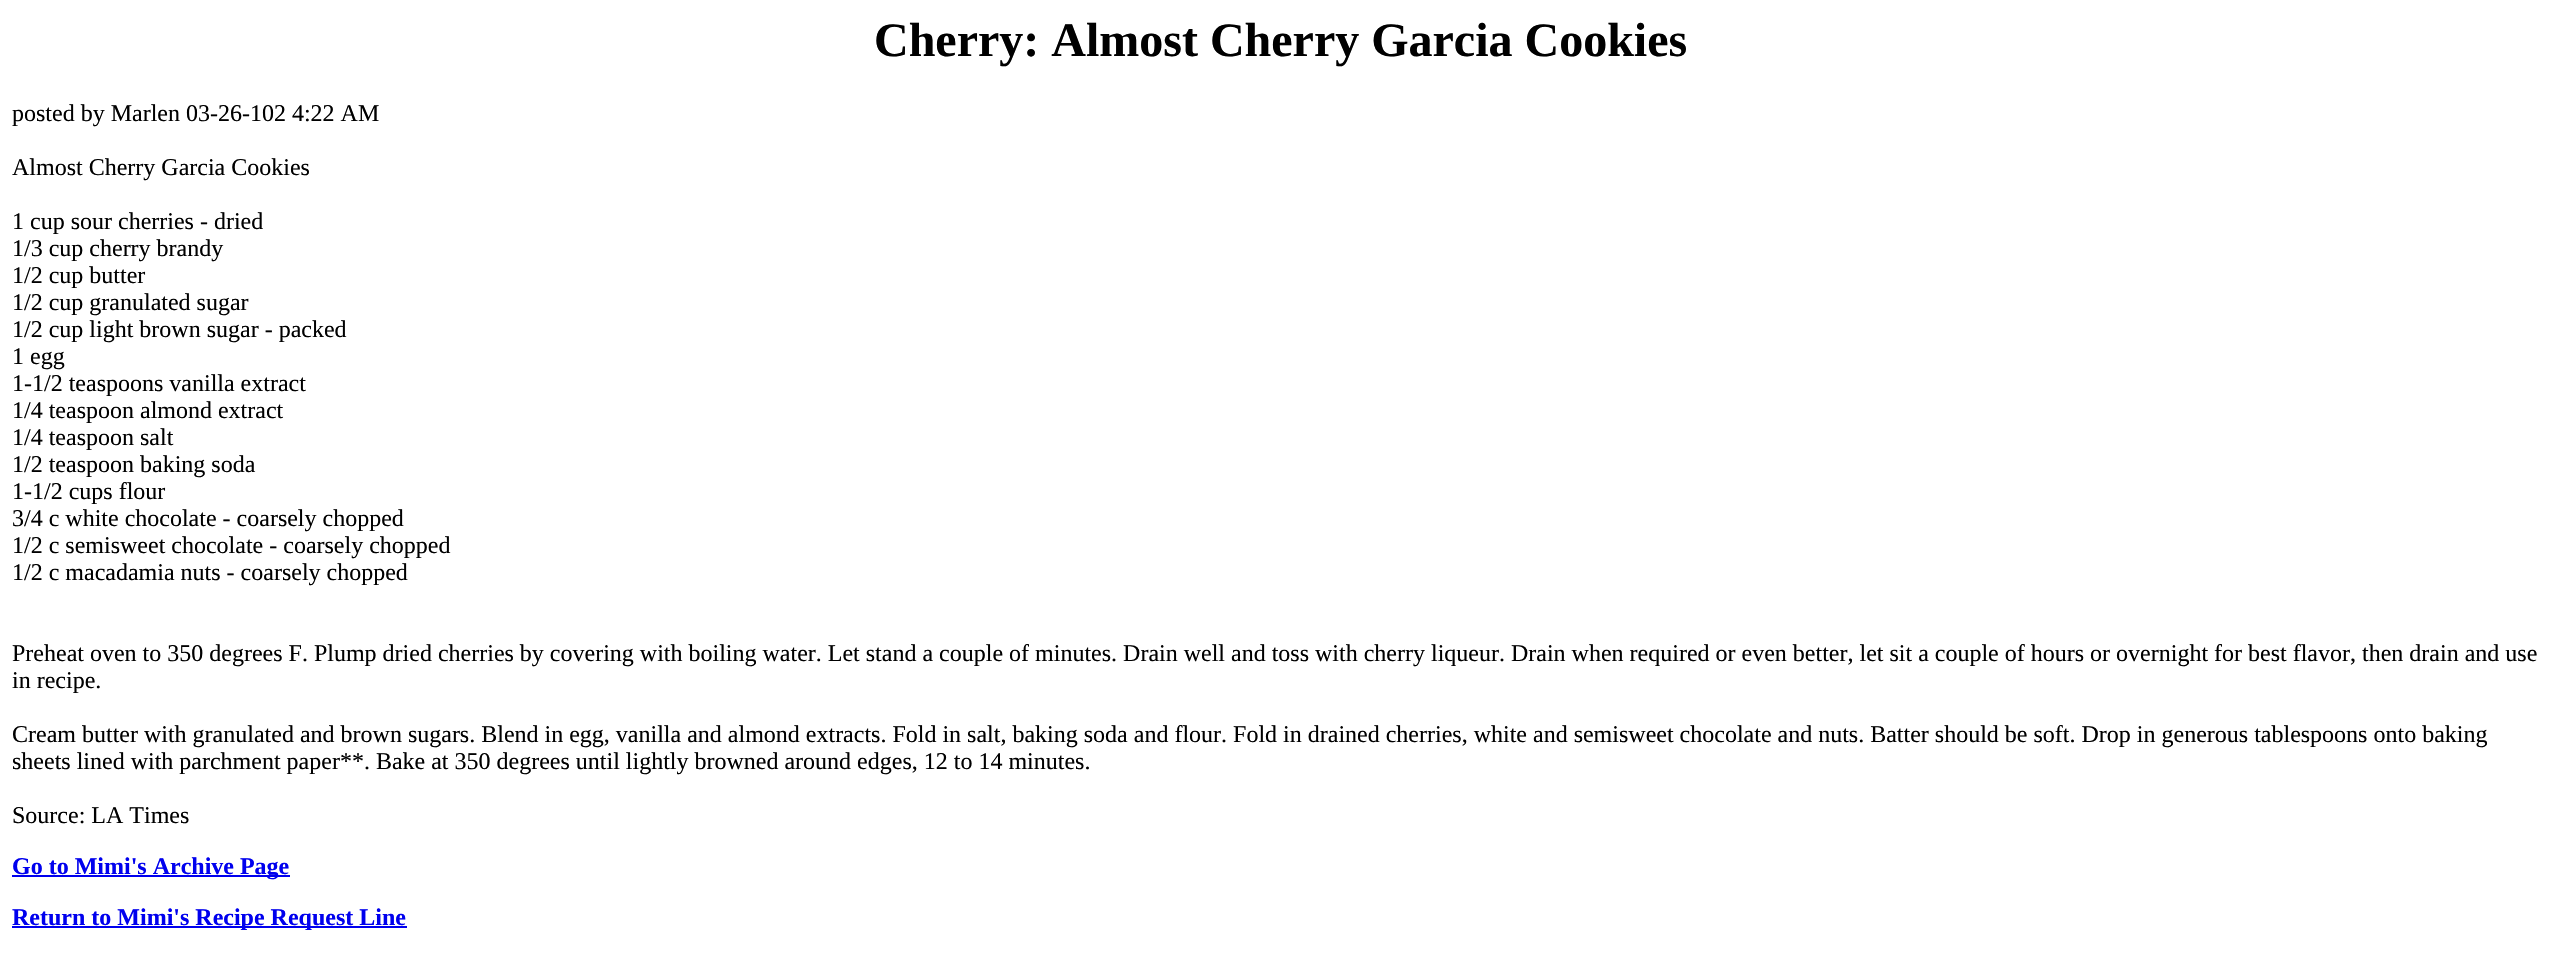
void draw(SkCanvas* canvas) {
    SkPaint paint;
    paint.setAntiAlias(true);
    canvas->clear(0xFFFFFFFF);
    SkFont font1(fontMgr->matchFamilyStyle("Liberation Serif", SkFontStyle::Bold()), 48);
    font1.setSubpixel(true);
    paint.setColor(0xFF000000);
    canvas->drawString("Cherry: Almost Cherry Garcia Cookies", 874, 56, font1, paint);
    SkFont font2(fontMgr->matchFamilyStyle("Liberation Serif", SkFontStyle::Normal()), 24);
    font2.setSubpixel(true);
    canvas->drawString("posted by Marlen 03-26-102 4:22 AM", 12, 121, font2, paint);
    canvas->drawString("Almost Cherry Garcia Cookies", 12, 175, font2, paint);
    canvas->drawString("1 cup sour cherries - dried", 12, 229, font2, paint);
    canvas->drawString("1/3 cup cherry brandy", 12, 256, font2, paint);
    canvas->drawString("1/2 cup butter", 12, 283, font2, paint);
    canvas->drawString("1/2 cup granulated sugar", 12, 310, font2, paint);
    canvas->drawString("1/2 cup light brown sugar - packed", 12, 337, font2, paint);
    canvas->drawString("1 egg", 12, 364, font2, paint);
    canvas->drawString("1-1/2 teaspoons vanilla extract", 12, 391, font2, paint);
    canvas->drawString("1/4 teaspoon almond extract", 12, 418, font2, paint);
    canvas->drawString("1/4 teaspoon salt", 12, 445, font2, paint);
    canvas->drawString("1/2 teaspoon baking soda", 12, 472, font2, paint);
    canvas->drawString("1-1/2 cups flour", 12, 499, font2, paint);
    canvas->drawString("3/4 c white chocolate - coarsely chopped", 12, 526, font2, paint);
    canvas->drawString("1/2 c semisweet chocolate - coarsely chopped", 12, 553, font2, paint);
    canvas->drawString("1/2 c macadamia nuts - coarsely chopped", 12, 580, font2, paint);
    canvas->drawString("Preheat oven to 350 degrees F. Plump dried cherries by covering with boiling water. Let stand a couple of minutes. Drain well and toss with cherry liqueur. Drain when required or even better, let sit a couple of hours or overnight for best flavor, then drain and use", 12, 661, font2, paint);
    canvas->drawString("in recipe.", 12, 688, font2, paint);
    canvas->drawString("Cream butter with granulated and brown sugars. Blend in egg, vanilla and almond extracts. Fold in salt, baking soda and flour. Fold in drained cherries, white and semisweet chocolate and nuts. Batter should be soft. Drop in generous tablespoons onto baking", 12, 742, font2, paint);
    canvas->drawString("sheets lined with parchment paper**. Bake at 350 degrees until lightly browned around edges, 12 to 14 minutes.", 12, 769, font2, paint);
    canvas->drawString("Source: LA Times", 12, 823, font2, paint);
    paint.setColor(0xFF0000EE);
    canvas->drawRect(SkRect::MakeXYWH(12, 875, 278, 2), paint);
    SkFont font3(fontMgr->matchFamilyStyle("Liberation Serif", SkFontStyle::Bold()), 24);
    font3.setSubpixel(true);
    canvas->drawString("Go to Mimi's Archive Page", 12, 874, font3, paint);
    canvas->drawRect(SkRect::MakeXYWH(12, 926, 395, 2), paint);
    canvas->drawString("Return to Mimi's Recipe Request Line", 12, 925, font3, paint);
}
